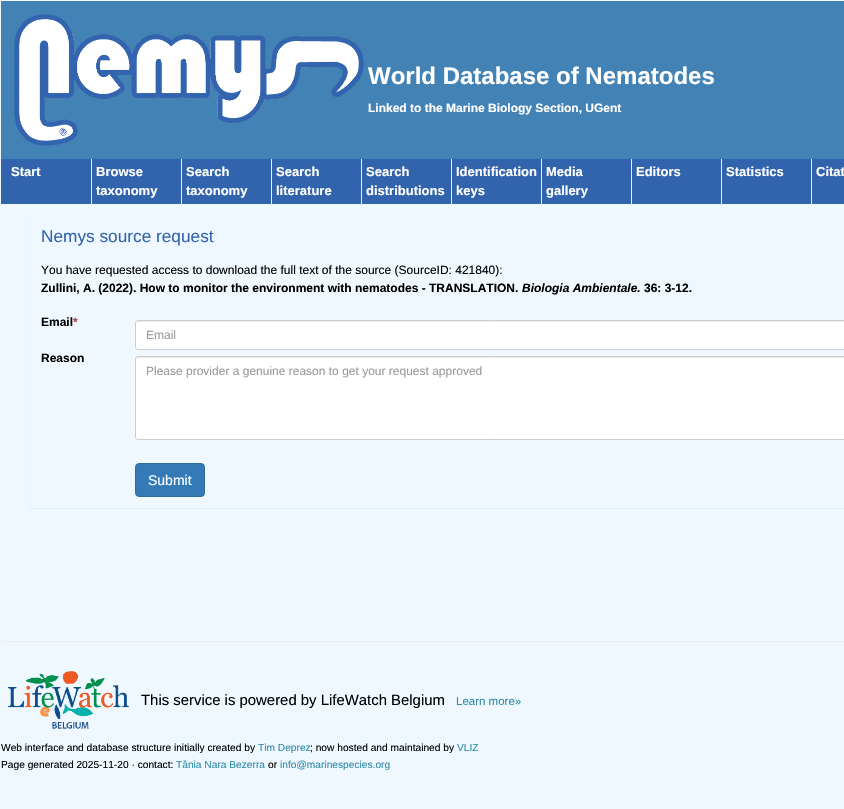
void draw(SkCanvas* canvas) {
    SkPaint paint;
    paint.setAntiAlias(true);
    canvas->clear(0xFFF0F8FF);
    paint.setColor(0xFF4382B4);
    canvas->drawRect(SkRect::MakeXYWH(1, 1, 843, 158), paint);
    canvas->drawImageRect(SkImages::DeferredFromEncodedData(SkData::MakeFromFileName("img1.png")), SkRect::MakeXYWH(14, 14, 350, 132), SkSamplingOptions());
    SkFont font1(fontMgr->matchFamilyStyle("Liberation Sans", SkFontStyle::Bold()), 24);
    font1.setSubpixel(true);
    paint.setColor(0xFFFFFFFF);
    canvas->drawString("World Database of Nematodes", 368, 84, font1, paint);
    SkFont font2(fontMgr->matchFamilyStyle("Liberation Sans", SkFontStyle::Bold()), 12);
    font2.setSubpixel(true);
    canvas->drawString("Linked to the Marine Biology Section, UGent", 368, 112, font2, paint);
    paint.setColor(0xFF3264AE);
    canvas->drawRect(SkRect::MakeXYWH(1, 159, 843, 45), paint);
    SkFont font3(fontMgr->matchFamilyStyle("Liberation Sans", SkFontStyle::Bold()), 13);
    font3.setSubpixel(true);
    paint.setColor(0xFFFFFFFF);
    canvas->drawString("Start", 11, 176, font3, paint);
    paint.setColor(0xFFEEEEEE);
    canvas->drawRect(SkRect::MakeXYWH(91, 159, 1, 45), paint);
    paint.setColor(0xFFFFFFFF);
    canvas->drawString("Browse", 96, 176, font3, paint);
    canvas->drawString("taxonomy", 96, 195, font3, paint);
    paint.setColor(0xFFEEEEEE);
    canvas->drawRect(SkRect::MakeXYWH(181, 159, 1, 45), paint);
    paint.setColor(0xFFFFFFFF);
    canvas->drawString("Search", 186, 176, font3, paint);
    canvas->drawString("taxonomy", 186, 195, font3, paint);
    paint.setColor(0xFFEEEEEE);
    canvas->drawRect(SkRect::MakeXYWH(271, 159, 1, 45), paint);
    paint.setColor(0xFFFFFFFF);
    canvas->drawString("Search", 276, 176, font3, paint);
    canvas->drawString("literature", 276, 195, font3, paint);
    paint.setColor(0xFFEEEEEE);
    canvas->drawRect(SkRect::MakeXYWH(361, 159, 1, 45), paint);
    paint.setColor(0xFFFFFFFF);
    canvas->drawString("Search", 366, 176, font3, paint);
    canvas->drawString("distributions", 366, 195, font3, paint);
    paint.setColor(0xFFEEEEEE);
    canvas->drawRect(SkRect::MakeXYWH(451, 159, 1, 45), paint);
    paint.setColor(0xFFFFFFFF);
    canvas->drawString("Identification", 456, 176, font3, paint);
    canvas->drawString("keys", 456, 195, font3, paint);
    paint.setColor(0xFFEEEEEE);
    canvas->drawRect(SkRect::MakeXYWH(541, 159, 1, 45), paint);
    paint.setColor(0xFFFFFFFF);
    canvas->drawString("Media", 546, 176, font3, paint);
    canvas->drawString("gallery", 546, 195, font3, paint);
    paint.setColor(0xFFEEEEEE);
    canvas->drawRect(SkRect::MakeXYWH(631, 159, 1, 45), paint);
    paint.setColor(0xFFFFFFFF);
    canvas->drawString("Editors", 636, 176, font3, paint);
    paint.setColor(0xFFEEEEEE);
    canvas->drawRect(SkRect::MakeXYWH(721, 159, 1, 45), paint);
    paint.setColor(0xFFFFFFFF);
    canvas->drawString("Statistics", 726, 176, font3, paint);
    paint.setColor(0xFFEEEEEE);
    canvas->drawRect(SkRect::MakeXYWH(811, 159, 1, 45), paint);
    paint.setColor(0xFFFFFFFF);
    canvas->drawString("Citat", 816, 176, font3, paint);
    canvas->save();
    canvas->clipPath(SkPathBuilder(SkPathFillType::kEvenOdd).moveTo(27, 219).lineTo(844, 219).lineTo(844, 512).lineTo(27, 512).close().moveTo(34, 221).lineTo(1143, 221).cubicTo(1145, 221, 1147, 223, 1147, 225).lineTo(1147, 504).cubicTo(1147, 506, 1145, 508, 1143, 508).lineTo(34, 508).cubicTo(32, 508, 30, 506, 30, 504).lineTo(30, 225).cubicTo(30, 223, 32, 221, 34, 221).close().detach(), true);
    paint.setColor(0x0D000000);
    paint.setMaskFilter(SkMaskFilter::MakeBlur(kNormal_SkBlurStyle, 0.5f));
    canvas->drawRoundRect(SkRect::MakeXYWH(30, 222, 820, 287), 4, 4, paint);
    paint.setMaskFilter(nullptr);
    canvas->restore();
    SkFont font4(fontMgr->matchFamilyStyle("Liberation Sans", SkFontStyle::Normal()), 17.25f);
    font4.setSubpixel(true);
    paint.setColor(0xFF3264AE);
    canvas->drawString("Nemys source request", 41, 242, font4, paint);
    SkFont font5(fontMgr->matchFamilyStyle("Liberation Sans", SkFontStyle::Normal()), 12);
    font5.setSubpixel(true);
    paint.setColor(0xFF000000);
    canvas->drawString("You have requested access to download the full text of the source (SourceID: 421840):", 41, 274, font5, paint);
    canvas->drawString("Zullini, A. (2022). How to monitor the environment with nematodes - TRANSLATION.", 41, 292, font2, paint);
    SkFont font6(fontMgr->matchFamilyStyle("Liberation Sans", SkFontStyle::BoldItalic()), 12);
    font6.setSubpixel(true);
    canvas->drawString("Biologia Ambientale.", 522, 292, font6, paint);
    canvas->drawString("36: 3-12.", 644, 292, font2, paint);
    canvas->drawString("Email", 41, 326, font2, paint);
    paint.setColor(0xFFA94442);
    canvas->drawString("*", 73, 326, font2, paint);
    paint.setColor(0xFFFFFFFF);
    canvas->drawRoundRect(SkRect::MakeXYWH(135, 320, 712, 30), 3, 3, paint);
    paint.setColor(0xFFECECEC);
    canvas->drawPath(SkPathBuilder().moveTo(138, 322).lineTo(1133, 322).cubicTo(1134, 322, 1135, 323, 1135, 324).lineTo(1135, 323).cubicTo(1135, 322, 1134, 321, 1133, 321).lineTo(138, 321).cubicTo(137, 321, 136, 322, 136, 323).lineTo(136, 324).cubicTo(136, 323, 137, 322, 138, 322).close().detach(), paint);
    paint.setStyle(SkPaint::kStroke_Style);
    paint.setStrokeWidth(1);
    paint.setColor(0xFFCCCCCC);
    canvas->drawRoundRect(SkRect::MakeXYWH(135.5f, 320.5f, 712, 29), 2.5f, 2.5f, paint);
    paint.setStyle(SkPaint::kFill_Style);
    paint.setColor(0xFF999999);
    canvas->drawString("Email", 146, 339, font5, paint);
    paint.setColor(0xFF000000);
    canvas->drawString("Reason", 41, 362, font2, paint);
    paint.setColor(0xFFFFFFFF);
    canvas->drawRoundRect(SkRect::MakeXYWH(135, 356, 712, 84), 3, 3, paint);
    paint.setColor(0xFFECECEC);
    canvas->drawPath(SkPathBuilder().moveTo(138, 358).lineTo(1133, 358).cubicTo(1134, 358, 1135, 359, 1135, 360).lineTo(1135, 359).cubicTo(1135, 358, 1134, 357, 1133, 357).lineTo(138, 357).cubicTo(137, 357, 136, 358, 136, 359).lineTo(136, 360).cubicTo(136, 359, 137, 358, 138, 358).close().detach(), paint);
    paint.setStyle(SkPaint::kStroke_Style);
    paint.setColor(0xFFCCCCCC);
    canvas->drawRoundRect(SkRect::MakeXYWH(135.5f, 356.5f, 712, 83), 2.5f, 2.5f, paint);
    paint.setStyle(SkPaint::kFill_Style);
    paint.setColor(0xFF999999);
    canvas->drawString("Please provider a genuine reason to get your request approved", 146, 375, font5, paint);
    paint.setColor(0xFF337AB7);
    canvas->drawRoundRect(SkRect::MakeXYWH(135.5f, 463.5f, 69, 33), 3.5f, 3.5f, paint);
    paint.setStyle(SkPaint::kStroke_Style);
    paint.setColor(0xFF2E6DA4);
    canvas->drawRoundRect(SkRect::MakeXYWH(135.5f, 463.5f, 69, 33), 3.5f, 3.5f, paint);
    SkFont font7(fontMgr->matchFamilyStyle("Liberation Sans", SkFontStyle::Normal()), 14);
    font7.setSubpixel(true);
    paint.setStyle(SkPaint::kFill_Style);
    paint.setColor(0xFFFFFFFF);
    canvas->drawString("Submit", 148, 485, font7, paint);
    paint.setColor(0xFFEEEEEE);
    canvas->drawRect(SkRect::MakeXYWH(1, 641, 843, 1), paint);
    canvas->drawImageRect(SkImages::DeferredFromEncodedData(SkData::MakeFromFileName("img2.png")), SkRect::MakeXYWH(8, 671, 121, 58), SkSamplingOptions());
    SkFont font8(fontMgr->matchFamilyStyle("Liberation Sans", SkFontStyle::Normal()), 14.9f);
    font8.setSubpixel(true);
    paint.setColor(0xFF000000);
    canvas->drawString("This service is powered by LifeWatch Belgium", 141, 705, font8, paint);
    SkFont font9(fontMgr->matchFamilyStyle("Liberation Sans", SkFontStyle::Normal()), 11.5f);
    font9.setSubpixel(true);
    paint.setColor(0xFF2D8BA8);
    canvas->drawString("Learn more»", 456, 705, font9, paint);
    SkFont font10(fontMgr->matchFamilyStyle("Liberation Sans", SkFontStyle::Normal()), 10.2f);
    font10.setSubpixel(true);
    paint.setColor(0xFF000000);
    canvas->drawString("Web interface and database structure initially created by", 1, 751, font10, paint);
    paint.setColor(0xFF2D8BA8);
    canvas->drawString("Tim Deprez", 258, 751, font10, paint);
    paint.setColor(0xFF000000);
    canvas->drawString("; now hosted and maintained by", 310, 751, font10, paint);
    paint.setColor(0xFF2D8BA8);
    canvas->drawString("VLIZ", 457, 751, font10, paint);
    paint.setColor(0xFF000000);
    canvas->drawString("Page generated 2025-11-20 · contact:", 1, 768, font10, paint);
    paint.setColor(0xFF2D8BA8);
    canvas->drawString("Tânia Nara Bezerra", 176, 768, font10, paint);
    paint.setColor(0xFF000000);
    canvas->drawString("or", 268, 768, font10, paint);
    paint.setColor(0xFF2D8BA8);
    canvas->drawString("info@marinespecies.org", 280, 768, font10, paint);
}
